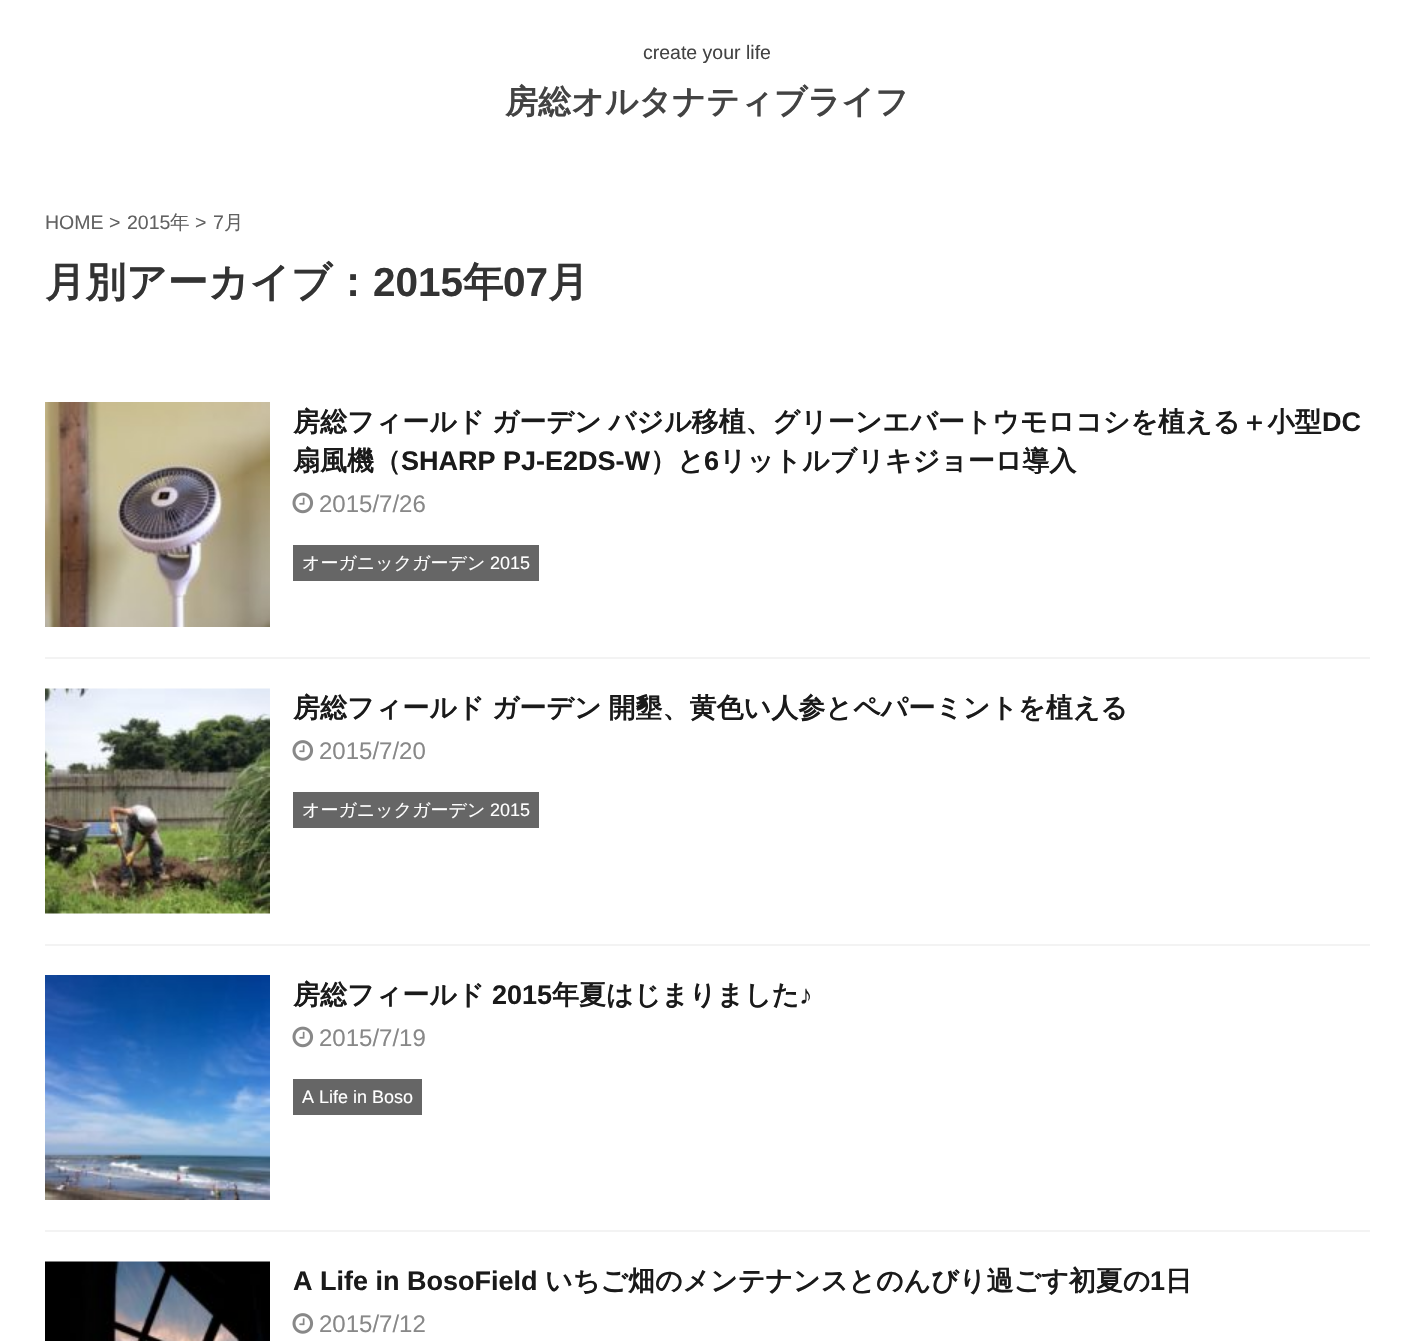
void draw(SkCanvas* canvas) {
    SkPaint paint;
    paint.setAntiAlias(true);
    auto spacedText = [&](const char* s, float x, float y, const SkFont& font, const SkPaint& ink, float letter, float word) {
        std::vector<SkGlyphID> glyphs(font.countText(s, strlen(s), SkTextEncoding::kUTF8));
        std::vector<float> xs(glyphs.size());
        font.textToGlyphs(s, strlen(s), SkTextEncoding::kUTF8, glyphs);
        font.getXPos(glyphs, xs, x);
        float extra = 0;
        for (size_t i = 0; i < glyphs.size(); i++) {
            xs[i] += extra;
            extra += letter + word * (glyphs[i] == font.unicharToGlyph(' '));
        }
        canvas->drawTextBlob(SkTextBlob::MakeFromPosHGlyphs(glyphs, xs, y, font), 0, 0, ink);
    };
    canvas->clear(0xFFFFFFFF);
    SkFont font1(fontMgr->matchFamilyStyle("Liberation Sans", SkFontStyle::Normal()), 19.5f);
    font1.setSubpixel(true);
    paint.setColor(0xFF434343);
    canvas->drawString("create your life", 643, 59, font1, paint);
    SkFont font2(fontMgr->matchFamilyStyle("WenQuanYi Zen Hei", SkFontStyle::Bold()), 33);
    font2.setSubpixel(true);
    canvas->drawString("房総オルタナティブライフ", 505, 113, font2, paint);
    paint.setColor(0xFF616161);
    canvas->drawString("HOME >", 45, 229, font1, paint);
    canvas->drawString("2015", 127, 229, font1, paint);
    SkFont font3(fontMgr->matchFamilyStyle("WenQuanYi Zen Hei", SkFontStyle(500, SkFontStyle::kNormal_Width, SkFontStyle::kUpright_Slant)), 19.5f);
    font3.setSubpixel(true);
    canvas->drawString("年", 170, 229, font3, paint);
    canvas->drawString(">", 195, 229, font1, paint);
    canvas->drawString("7", 213, 229, font1, paint);
    canvas->drawString("月", 224, 229, font3, paint);
    SkFont font4(fontMgr->matchFamilyStyle("WenQuanYi Zen Hei", SkFontStyle::Bold()), 40.5f);
    font4.setSubpixel(true);
    paint.setColor(0xFF333333);
    canvas->drawString("月別アーカイブ：", 45, 296, font4, paint);
    SkFont font5(fontMgr->matchFamilyStyle("Liberation Sans", SkFontStyle::Bold()), 40.5f);
    font5.setSubpixel(true);
    canvas->drawString("2015", 373, 296, font5, paint);
    canvas->drawString("年", 463, 296, font4, paint);
    canvas->drawString("07", 503, 296, font5, paint);
    canvas->drawString("月", 548, 296, font4, paint);
    paint.setColor(0xFFF3F3F3);
    canvas->drawRect(SkRect::MakeXYWH(45, 657, 1325, 2), paint);
    canvas->drawImageRect(SkImages::DeferredFromEncodedData(SkData::MakeFromFileName("img1.png")), SkRect::MakeXYWH(45, 402, 225, 225), SkSamplingOptions());
    SkFont font6(fontMgr->matchFamilyStyle("WenQuanYi Zen Hei", SkFontStyle::Bold()), 27);
    font6.setSubpixel(true);
    paint.setColor(0xFF1A1A1A);
    spacedText("房総フィールド ガーデン バジル移植、グリーンエバートウモロコシを植える＋小型", 293, 431, font6, paint, 0, -1);
    SkFont font7(fontMgr->matchFamilyStyle("Liberation Sans", SkFontStyle::Bold()), 27);
    font7.setSubpixel(true);
    canvas->drawString("DC", 1322, 431, font7, paint);
    canvas->drawString("扇風機（", 293, 470, font6, paint);
    canvas->drawString("SHARP PJ-E2DS-W", 401, 470, font7, paint);
    canvas->drawString("）と", 650, 470, font6, paint);
    canvas->drawString("6", 704, 470, font7, paint);
    canvas->drawString("リットルブリキジョーロ導入", 719, 470, font6, paint);
    canvas->drawImageRect(SkImages::DeferredFromEncodedData(SkData::MakeFromFileName("img2.png")), SkRect::MakeXYWH(292, 492, 22, 22), SkSamplingOptions());
    SkFont font8(fontMgr->matchFamilyStyle("Liberation Sans", SkFontStyle::Normal()), 24);
    font8.setSubpixel(true);
    paint.setColor(0xFF888888);
    canvas->drawString("2015/7/26", 319, 512, font8, paint);
    paint.setColor(0xFF666666);
    canvas->drawRect(SkRect::MakeXYWH(293, 545, 246, 36), paint);
    SkFont font9(fontMgr->matchFamilyStyle("WenQuanYi Zen Hei", SkFontStyle(500, SkFontStyle::kNormal_Width, SkFontStyle::kUpright_Slant)), 18);
    font9.setSubpixel(true);
    paint.setColor(0xFFFFFFFF);
    canvas->drawString("オーガニックガーデン", 302, 569, font9, paint);
    SkFont font10(fontMgr->matchFamilyStyle("Liberation Sans", SkFontStyle::Normal()), 18);
    font10.setSubpixel(true);
    canvas->drawString("2015", 490, 569, font10, paint);
    paint.setColor(0xFFF3F3F3);
    canvas->drawRect(SkRect::MakeXYWH(45, 944, 1325, 2), paint);
    canvas->drawImageRect(SkImages::DeferredFromEncodedData(SkData::MakeFromFileName("img3.png")), SkRect::MakeXYWH(45, 688, 225, 226), SkSamplingOptions());
    paint.setColor(0xFF1A1A1A);
    spacedText("房総フィールド ガーデン 開墾、黄色い人参とペパーミントを植える", 293, 717, font6, paint, 0, -1);
    canvas->drawImageRect(SkImages::DeferredFromEncodedData(SkData::MakeFromFileName("img4.png")), SkRect::MakeXYWH(292, 740, 22, 21), SkSamplingOptions());
    paint.setColor(0xFF888888);
    canvas->drawString("2015/7/20", 319, 759, font8, paint);
    paint.setColor(0xFF666666);
    canvas->drawRect(SkRect::MakeXYWH(293, 792, 246, 36), paint);
    paint.setColor(0xFFFFFFFF);
    canvas->drawString("オーガニックガーデン", 302, 816, font9, paint);
    canvas->drawString("2015", 490, 816, font10, paint);
    paint.setColor(0xFFF3F3F3);
    canvas->drawRect(SkRect::MakeXYWH(45, 1230, 1325, 2), paint);
    canvas->drawImageRect(SkImages::DeferredFromEncodedData(SkData::MakeFromFileName("img5.png")), SkRect::MakeXYWH(45, 975, 225, 225), SkSamplingOptions());
    paint.setColor(0xFF1A1A1A);
    canvas->drawString("房総フィールド", 293, 1004, font6, paint);
    canvas->drawString("2015", 492, 1004, font7, paint);
    canvas->drawString("年夏はじまりました", 552, 1004, font6, paint);
    canvas->drawString("♪", 799, 1004, font7, paint);
    canvas->drawImageRect(SkImages::DeferredFromEncodedData(SkData::MakeFromFileName("img2.png")), SkRect::MakeXYWH(292, 1026, 22, 22), SkSamplingOptions());
    paint.setColor(0xFF888888);
    canvas->drawString("2015/7/19", 319, 1046, font8, paint);
    paint.setColor(0xFF666666);
    canvas->drawRect(SkRect::MakeXYWH(293, 1079, 129, 36), paint);
    paint.setColor(0xFFFFFFFF);
    canvas->drawString("A Life in Boso", 302, 1103, font10, paint);
    canvas->drawImageRect(SkImages::DeferredFromEncodedData(SkData::MakeFromFileName("img6.png")), SkRect::MakeXYWH(45, 1261, 225, 80), SkSamplingOptions());
    paint.setColor(0xFF1A1A1A);
    canvas->drawString("A Life in BosoField", 293, 1290, font7, paint);
    canvas->drawString("いちご畑のメンテナンスとのんびり過ごす初夏の", 545, 1290, font6, paint);
    canvas->drawString("1", 1150, 1290, font7, paint);
    canvas->drawString("日", 1165, 1290, font6, paint);
    canvas->drawImageRect(SkImages::DeferredFromEncodedData(SkData::MakeFromFileName("img4.png")), SkRect::MakeXYWH(292, 1313, 22, 21), SkSamplingOptions());
    paint.setColor(0xFF888888);
    canvas->drawString("2015/7/12", 319, 1332, font8, paint);
}
